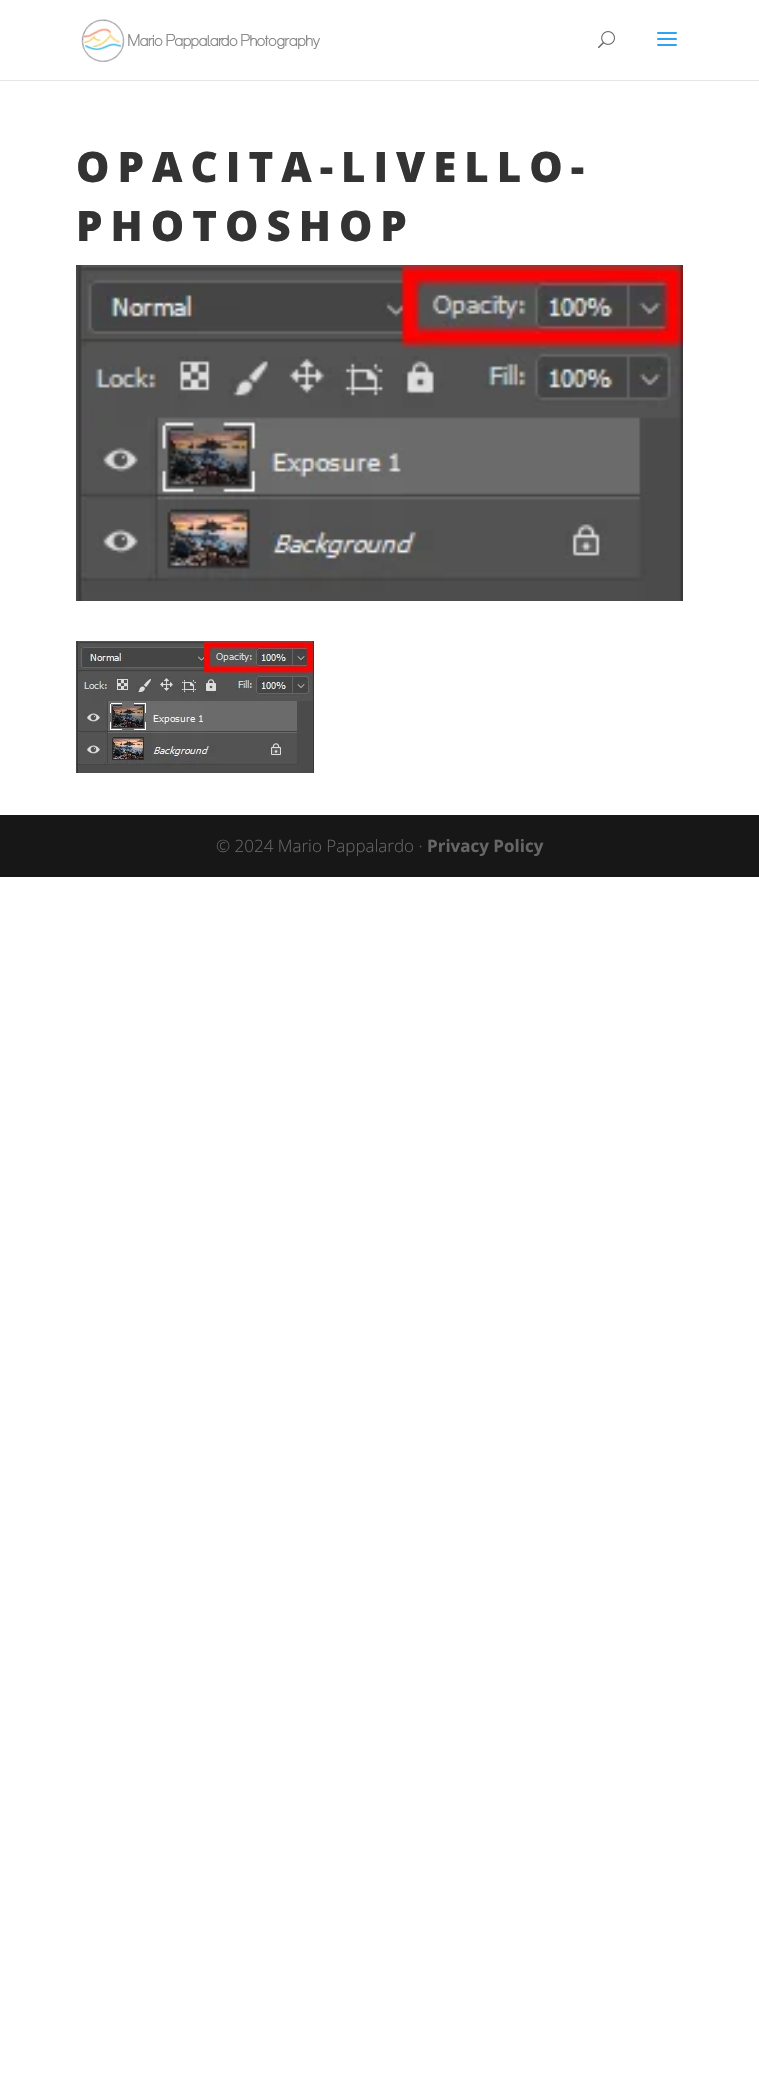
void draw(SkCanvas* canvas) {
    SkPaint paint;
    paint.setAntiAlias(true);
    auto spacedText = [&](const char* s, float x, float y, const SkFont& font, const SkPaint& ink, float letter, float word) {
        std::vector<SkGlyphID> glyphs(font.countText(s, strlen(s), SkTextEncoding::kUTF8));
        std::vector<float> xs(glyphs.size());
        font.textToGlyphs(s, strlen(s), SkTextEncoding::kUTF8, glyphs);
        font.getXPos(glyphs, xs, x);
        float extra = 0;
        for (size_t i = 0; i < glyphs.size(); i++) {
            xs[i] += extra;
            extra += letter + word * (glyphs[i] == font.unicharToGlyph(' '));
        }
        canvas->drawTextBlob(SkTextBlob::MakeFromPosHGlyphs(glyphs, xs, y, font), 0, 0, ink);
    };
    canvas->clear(0xFFFFFFFF);
    paint.setColor(0xFFE6E6E6);
    canvas->drawRect(SkRect::MakeXYWH(0, 80, 759, 1), paint);
    canvas->drawImageRect(SkImages::DeferredFromEncodedData(SkData::MakeFromFileName("img1.png")), SkRect::MakeXYWH(81, 19, 240, 43), SkSamplingOptions());
    canvas->drawImageRect(SkImages::DeferredFromEncodedData(SkData::MakeFromFileName("img2.png")), SkRect::MakeXYWH(598, 31, 17, 18), SkSamplingOptions());
    canvas->drawImageRect(SkImages::DeferredFromEncodedData(SkData::MakeFromFileName("img3.png")), SkRect::MakeXYWH(657, 32, 20, 14), SkSamplingOptions());
    SkFont font1(fontMgr->matchFamilyStyle("Open Sans", SkFontStyle(800, SkFontStyle::kNormal_Width, SkFontStyle::kUpright_Slant)), 42);
    font1.setSubpixel(true);
    paint.setColor(0xFF333333);
    spacedText("OPACITA-LIVELLO-", 76, 182, font1, paint, 8, 0);
    spacedText("PHOTOSHOP", 76, 241, font1, paint, 8, 0);
    canvas->drawImageRect(SkImages::DeferredFromEncodedData(SkData::MakeFromFileName("img4.png")), SkRect::MakeXYWH(76, 265, 607, 336), SkSamplingOptions());
    canvas->drawImageRect(SkImages::DeferredFromEncodedData(SkData::MakeFromFileName("img5.png")), SkRect::MakeXYWH(76, 641, 238, 132), SkSamplingOptions());
    paint.setColor(0xFF171717);
    canvas->drawRect(SkRect::MakeXYWH(0, 815, 759, 62), paint);
    SkFont font2(fontMgr->matchFamilyStyle("Open Sans", SkFontStyle(300, SkFontStyle::kNormal_Width, SkFontStyle::kUpright_Slant)), 17);
    font2.setSubpixel(true);
    paint.setColor(0xFF666666);
    canvas->drawString("© 2024 Mario Pappalardo ·", 216, 852, font2, paint);
    SkFont font3(fontMgr->matchFamilyStyle("Open Sans", SkFontStyle::Bold()), 17);
    font3.setSubpixel(true);
    canvas->drawString("Privacy Policy", 427, 852, font3, paint);
}
